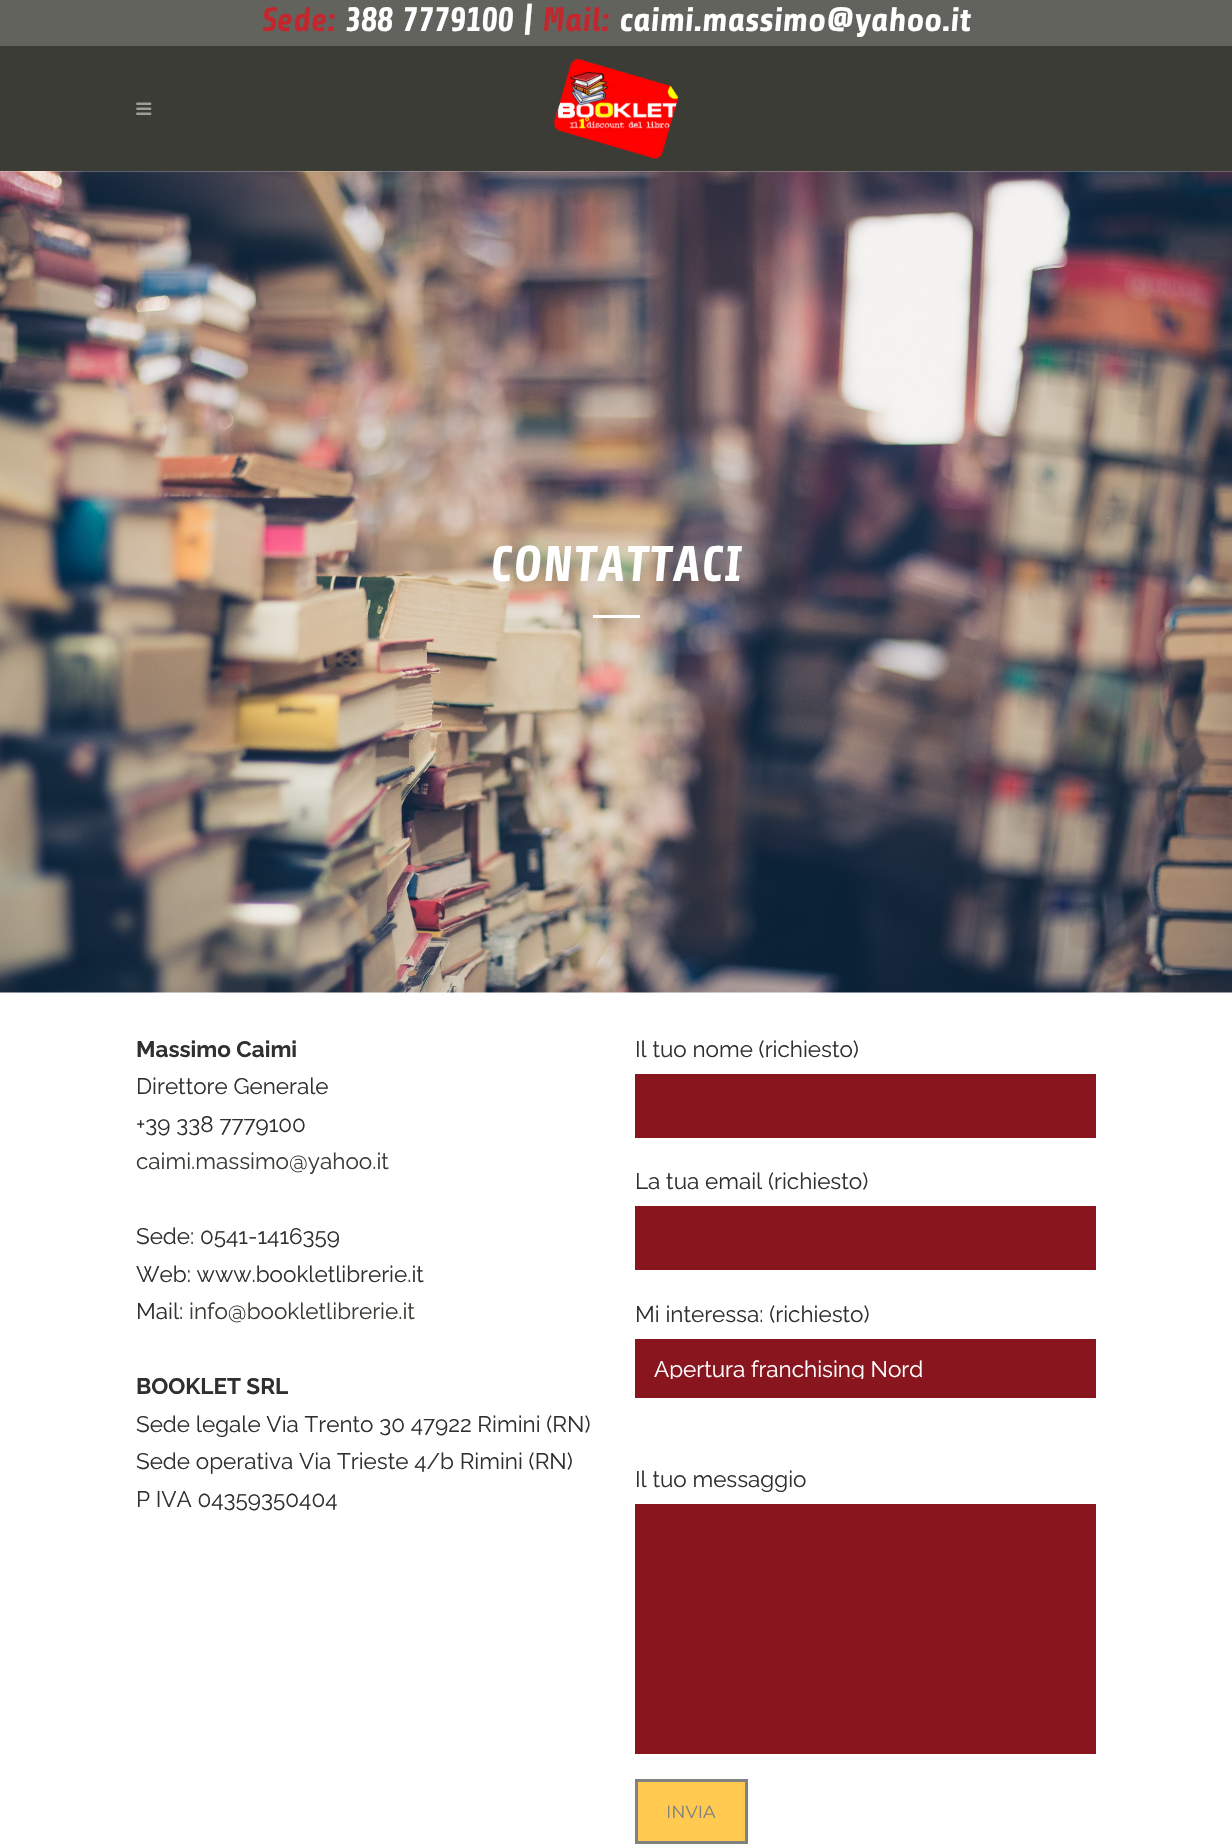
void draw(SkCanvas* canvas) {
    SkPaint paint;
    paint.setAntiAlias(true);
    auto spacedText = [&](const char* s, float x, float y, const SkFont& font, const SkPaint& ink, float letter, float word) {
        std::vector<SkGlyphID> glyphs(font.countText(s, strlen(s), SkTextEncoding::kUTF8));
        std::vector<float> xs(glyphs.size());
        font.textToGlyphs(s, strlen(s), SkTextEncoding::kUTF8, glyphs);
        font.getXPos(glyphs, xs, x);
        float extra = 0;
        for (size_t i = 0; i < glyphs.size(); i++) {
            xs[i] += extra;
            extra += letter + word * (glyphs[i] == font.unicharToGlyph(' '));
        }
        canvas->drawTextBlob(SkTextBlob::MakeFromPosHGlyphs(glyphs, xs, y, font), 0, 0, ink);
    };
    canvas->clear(0xFFFFFFFF);
    paint.setColor(0xFF62635D);
    canvas->drawRect(SkRect::MakeXYWH(0, 0, 1232, 46), paint);
    SkFont font1(fontMgr->matchFamilyStyle("Share", SkFontStyle::BoldItalic()), 33.75f);
    font1.setSubpixel(true);
    paint.setColor(0xFFC1272D);
    canvas->drawString("Sede:", 262, 31, font1, paint);
    paint.setColor(0xFFFFFFFF);
    canvas->drawString("388 7779100 |", 345, 31, font1, paint);
    paint.setColor(0xFFC1272D);
    canvas->drawString("Mail:", 542, 31, font1, paint);
    paint.setColor(0xFFFFFFFF);
    canvas->drawString("caimi.massimo@yahoo.it", 619, 31, font1, paint);
    paint.setColor(0xFF3B3C35);
    canvas->drawRect(SkRect::MakeXYWH(0, 46, 1232, 125), paint);
    canvas->drawImageRect(SkImages::DeferredFromEncodedData(SkData::MakeFromFileName("img1.png")), SkRect::MakeXYWH(136, 102, 16, 13), SkSamplingOptions());
    canvas->drawImageRect(SkImages::DeferredFromEncodedData(SkData::MakeFromFileName("img2.png")), SkRect::MakeXYWH(553, 58, 126, 101), SkSamplingOptions());
    canvas->drawImageRect(SkImages::DeferredFromEncodedData(SkData::MakeFromFileName("img3.png")), SkRect::MakeXYWH(0, 171, 1232, 822), SkSamplingOptions());
    SkFont font2(fontMgr->matchFamilyStyle("Share", SkFontStyle::BoldItalic()), 50);
    font2.setSubpixel(true);
    paint.setColor(0xFFFFFFFF);
    spacedText("CONTATTACI", 490, 581, font2, paint, 1.25f, 0);
    canvas->drawRect(SkRect::MakeXYWH(593, 615, 47, 3), paint);
    SkFont font3(fontMgr->matchFamilyStyle("Raleway", SkFontStyle::Bold()), 22.5f);
    font3.setSubpixel(true);
    paint.setColor(0xFF303030);
    canvas->drawString("Massimo Caimi", 136, 1057, font3, paint);
    SkFont font4(fontMgr->matchFamilyStyle("Raleway", SkFontStyle::Normal()), 22.5f);
    font4.setSubpixel(true);
    canvas->drawString("Direttore Generale", 136, 1094, font4, paint);
    canvas->drawString("+39 338 7779100", 136, 1132, font4, paint);
    paint.setColor(0xFF3B3C35);
    canvas->drawString("caimi.massimo@yahoo.it", 136, 1169, font4, paint);
    paint.setColor(0xFF303030);
    canvas->drawString("Sede: 0541-1416359", 136, 1244, font4, paint);
    canvas->drawString("Web: www.bookletlibrerie.it", 136, 1282, font4, paint);
    canvas->drawString("Mail:", 136, 1319, font4, paint);
    paint.setColor(0xFF3B3C35);
    canvas->drawString("info@bookletlibrerie.it", 189, 1319, font4, paint);
    paint.setColor(0xFF303030);
    canvas->drawString("BOOKLET SRL", 136, 1394, font3, paint);
    canvas->drawString("Sede legale Via Trento 30 47922 Rimini (RN)", 136, 1432, font4, paint);
    canvas->drawString("Sede operativa Via Trieste 4/b Rimini (RN)", 136, 1469, font4, paint);
    canvas->drawString("P IVA 04359350404", 136, 1507, font4, paint);
    canvas->drawString("Il tuo nome (richiesto)", 635, 1057, font4, paint);
    paint.setColor(0xFF89151E);
    canvas->drawRect(SkRect::MakeXYWH(635, 1074, 461, 64), paint);
    paint.setColor(0xFF303030);
    canvas->drawString("La tua email (richiesto)", 635, 1189, font4, paint);
    paint.setColor(0xFF89151E);
    canvas->drawRect(SkRect::MakeXYWH(635, 1206, 461, 64), paint);
    paint.setColor(0xFF303030);
    canvas->drawString("Mi interessa: (richiesto)", 635, 1322, font4, paint);
    paint.setColor(0xFF89151E);
    canvas->drawRect(SkRect::MakeXYWH(635, 1339, 461, 59), paint);
    canvas->save();
    canvas->clipRect(SkRect::MakeXYWH(654, 1358, 424, 21));
    paint.setColor(0xFFFFFFFF);
    canvas->drawString("Apertura franchising Nord", 654, 1377, font4, paint);
    canvas->restore();
    paint.setColor(0xFF303030);
    canvas->drawString("Il tuo messaggio", 635, 1487, font4, paint);
    paint.setColor(0xFF89151E);
    canvas->drawRect(SkRect::MakeXYWH(635, 1504, 461, 250), paint);
    paint.setColor(0xFFFFCA4F);
    canvas->drawRect(SkRect::MakeXYWH(636.5f, 1780.5f, 110, 62), paint);
    paint.setStyle(SkPaint::kStroke_Style);
    paint.setStrokeWidth(3);
    paint.setColor(0xFF818181);
    canvas->drawRect(SkRect::MakeXYWH(636.5f, 1780.5f, 110, 62), paint);
    SkFont font5(fontMgr->matchFamilyStyle("Montserrat", SkFontStyle::Normal()), 17.5f);
    font5.setSubpixel(true);
    paint.setStyle(SkPaint::kFill_Style);
    canvas->drawString("INVIA", 666, 1818, font5, paint);
}
